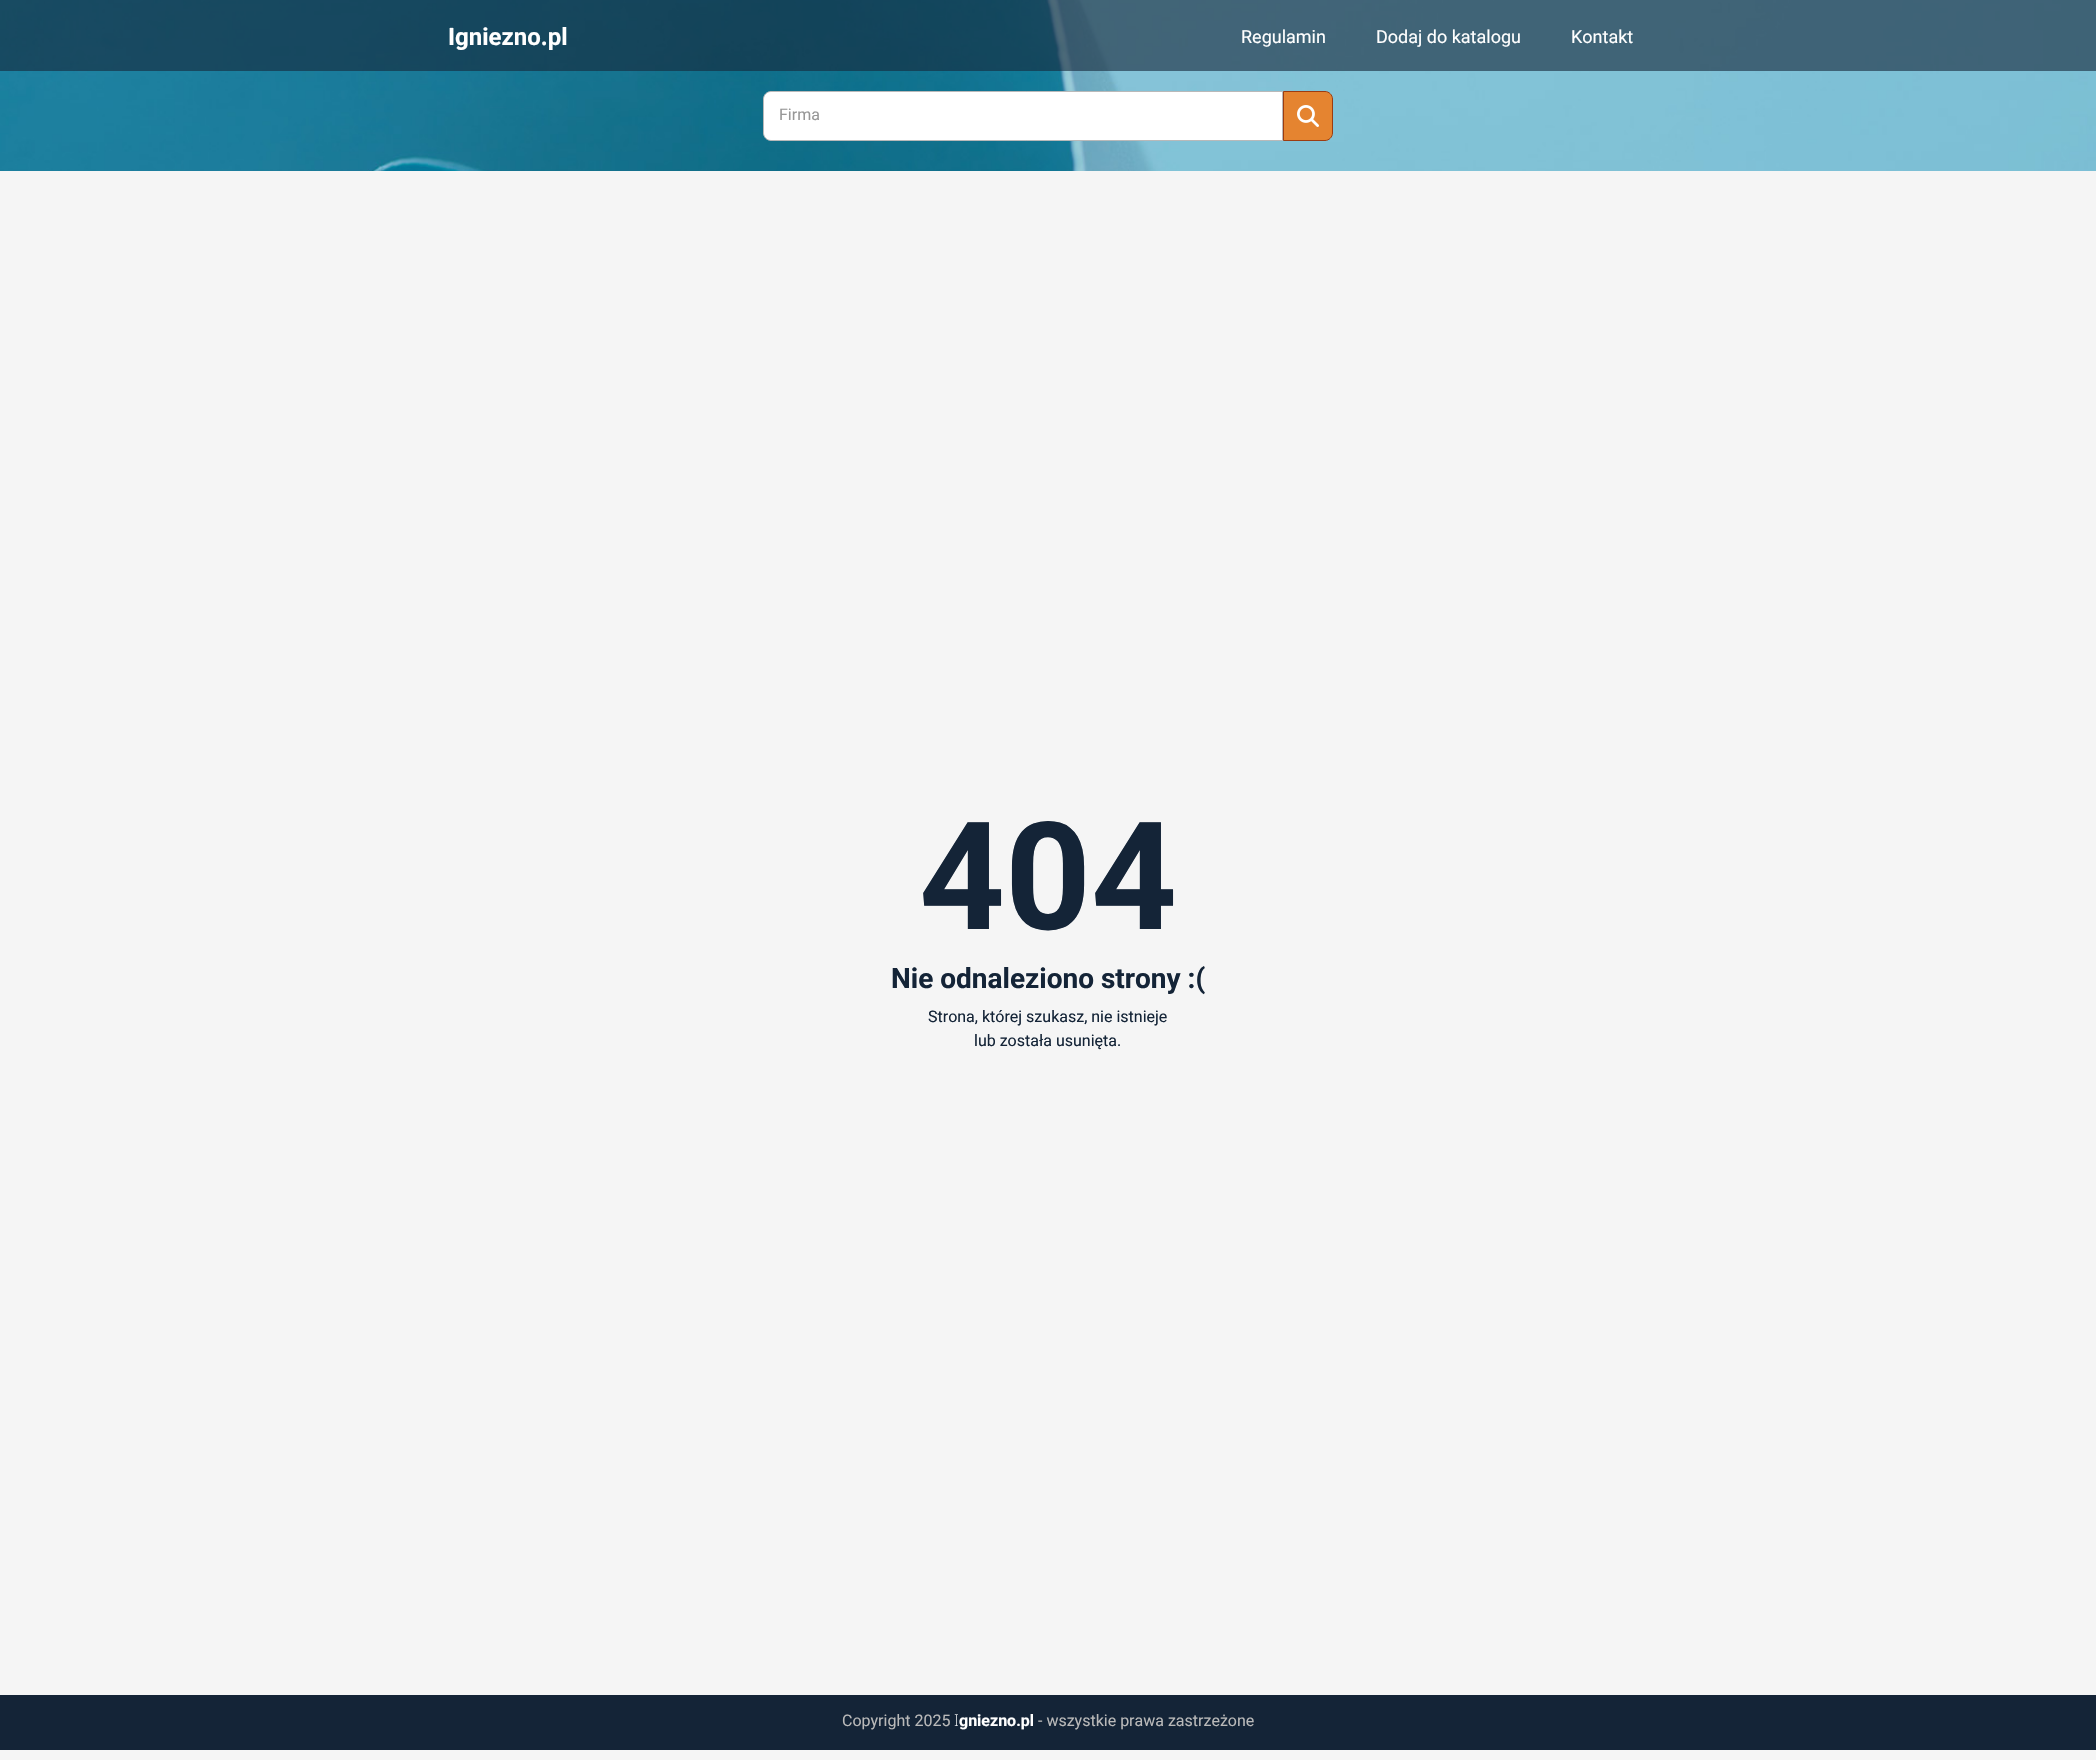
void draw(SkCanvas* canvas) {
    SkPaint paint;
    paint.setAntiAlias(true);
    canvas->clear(0xFFF5F5F5);
    canvas->drawImageRect(SkImages::DeferredFromEncodedData(SkData::MakeFromFileName("img1.png")), SkRect::MakeXYWH(0, 0, 2096, 171), SkSamplingOptions());
    paint.setColor(0x99142437);
    canvas->drawRect(SkRect::MakeXYWH(0, 0, 2096, 71), paint);
    SkFont font1(fontMgr->matchFamilyStyle("Roboto", SkFontStyle::Bold()), 24);
    font1.setSubpixel(true);
    paint.setColor(0xFFFFFFFF);
    canvas->drawString("Igniezno.pl", 448, 45, font1, paint);
    SkFont font2(fontMgr->matchFamilyStyle("Roboto", SkFontStyle::Normal()), 18);
    font2.setSubpixel(true);
    canvas->drawString("Regulamin", 1241, 43, font2, paint);
    canvas->drawString("Dodaj do katalogu", 1376, 43, font2, paint);
    canvas->drawString("Kontakt", 1571, 43, font2, paint);
    canvas->drawPath(SkPathBuilder().moveTo(771, 91.5f).lineTo(1282.5f, 91.5f).lineTo(1282.5f, 140.5f).lineTo(771, 140.5f).cubicTo(767, 140.5f, 763.5f, 137, 763.5f, 133).lineTo(763.5f, 99).cubicTo(763.5f, 95, 767, 91.5f, 771, 91.5f).close().detach(), paint);
    paint.setStyle(SkPaint::kStroke_Style);
    paint.setStrokeWidth(1);
    paint.setColor(0xFFB9B9B9);
    canvas->drawPath(SkPathBuilder().moveTo(771, 91.5f).lineTo(1282.5f, 91.5f).lineTo(1282.5f, 140.5f).lineTo(771, 140.5f).cubicTo(767, 140.5f, 763.5f, 137, 763.5f, 133).lineTo(763.5f, 99).cubicTo(763.5f, 95, 767, 91.5f, 771, 91.5f).close().detach(), paint);
    SkFont font3(fontMgr->matchFamilyStyle("Roboto", SkFontStyle::Normal()), 16);
    font3.setSubpixel(true);
    paint.setStyle(SkPaint::kFill_Style);
    paint.setColor(0xFF979797);
    canvas->drawString("Firma", 779, 120, font3, paint);
    paint.setColor(0xFFE58430);
    canvas->drawPath(SkPathBuilder().moveTo(1283.5f, 91.5f).lineTo(1325, 91.5f).cubicTo(1329, 91.5f, 1332.5f, 95, 1332.5f, 99).lineTo(1332.5f, 133).cubicTo(1332.5f, 137, 1329, 140.5f, 1325, 140.5f).lineTo(1283.5f, 140.5f).close().detach(), paint);
    paint.setStyle(SkPaint::kStroke_Style);
    paint.setColor(0xFF9C3C11);
    canvas->drawPath(SkPathBuilder().moveTo(1283.5f, 91.5f).lineTo(1325, 91.5f).cubicTo(1329, 91.5f, 1332.5f, 95, 1332.5f, 99).lineTo(1332.5f, 133).cubicTo(1332.5f, 137, 1329, 140.5f, 1325, 140.5f).lineTo(1283.5f, 140.5f).close().detach(), paint);
    canvas->drawImageRect(SkImages::DeferredFromEncodedData(SkData::MakeFromFileName("img2.png")), SkRect::MakeXYWH(1297, 105, 22, 22), SkSamplingOptions());
    SkFont font4(fontMgr->matchFamilyStyle("Roboto", SkFontStyle::Bold()), 150);
    font4.setSubpixel(true);
    paint.setStyle(SkPaint::kFill_Style);
    paint.setColor(0xFF142437);
    canvas->drawString("404", 919, 929, font4, paint);
    SkFont font5(fontMgr->matchFamilyStyle("Roboto", SkFontStyle::Bold()), 28);
    font5.setSubpixel(true);
    canvas->drawString("Nie odnaleziono strony :(", 891, 988, font5, paint);
    canvas->drawString("Strona, której szukasz, nie istnieje", 928, 1022, font3, paint);
    canvas->drawString("lub została usunięta.", 974, 1046, font3, paint);
    canvas->drawRect(SkRect::MakeXYWH(0, 1695, 2096, 55), paint);
    paint.setColor(0xFFB9B9B9);
    canvas->drawString("Copyright 2025", 842, 1726, font3, paint);
    SkFont font6(fontMgr->matchFamilyStyle("Noto Sans", SkFontStyle(200, SkFontStyle::kNormal_Width, SkFontStyle::kUpright_Slant)), 16);
    font6.setSubpixel(true);
    paint.setColor(0xFFFFFFFF);
    canvas->drawString("I", 954, 1726, font6, paint);
    SkFont font7(fontMgr->matchFamilyStyle("Roboto", SkFontStyle::Bold()), 16);
    font7.setSubpixel(true);
    canvas->drawString("gniezno.pl", 959, 1726, font7, paint);
    paint.setColor(0xFFB9B9B9);
    canvas->drawString("- wszystkie prawa zastrzeżone", 1038, 1726, font3, paint);
}
